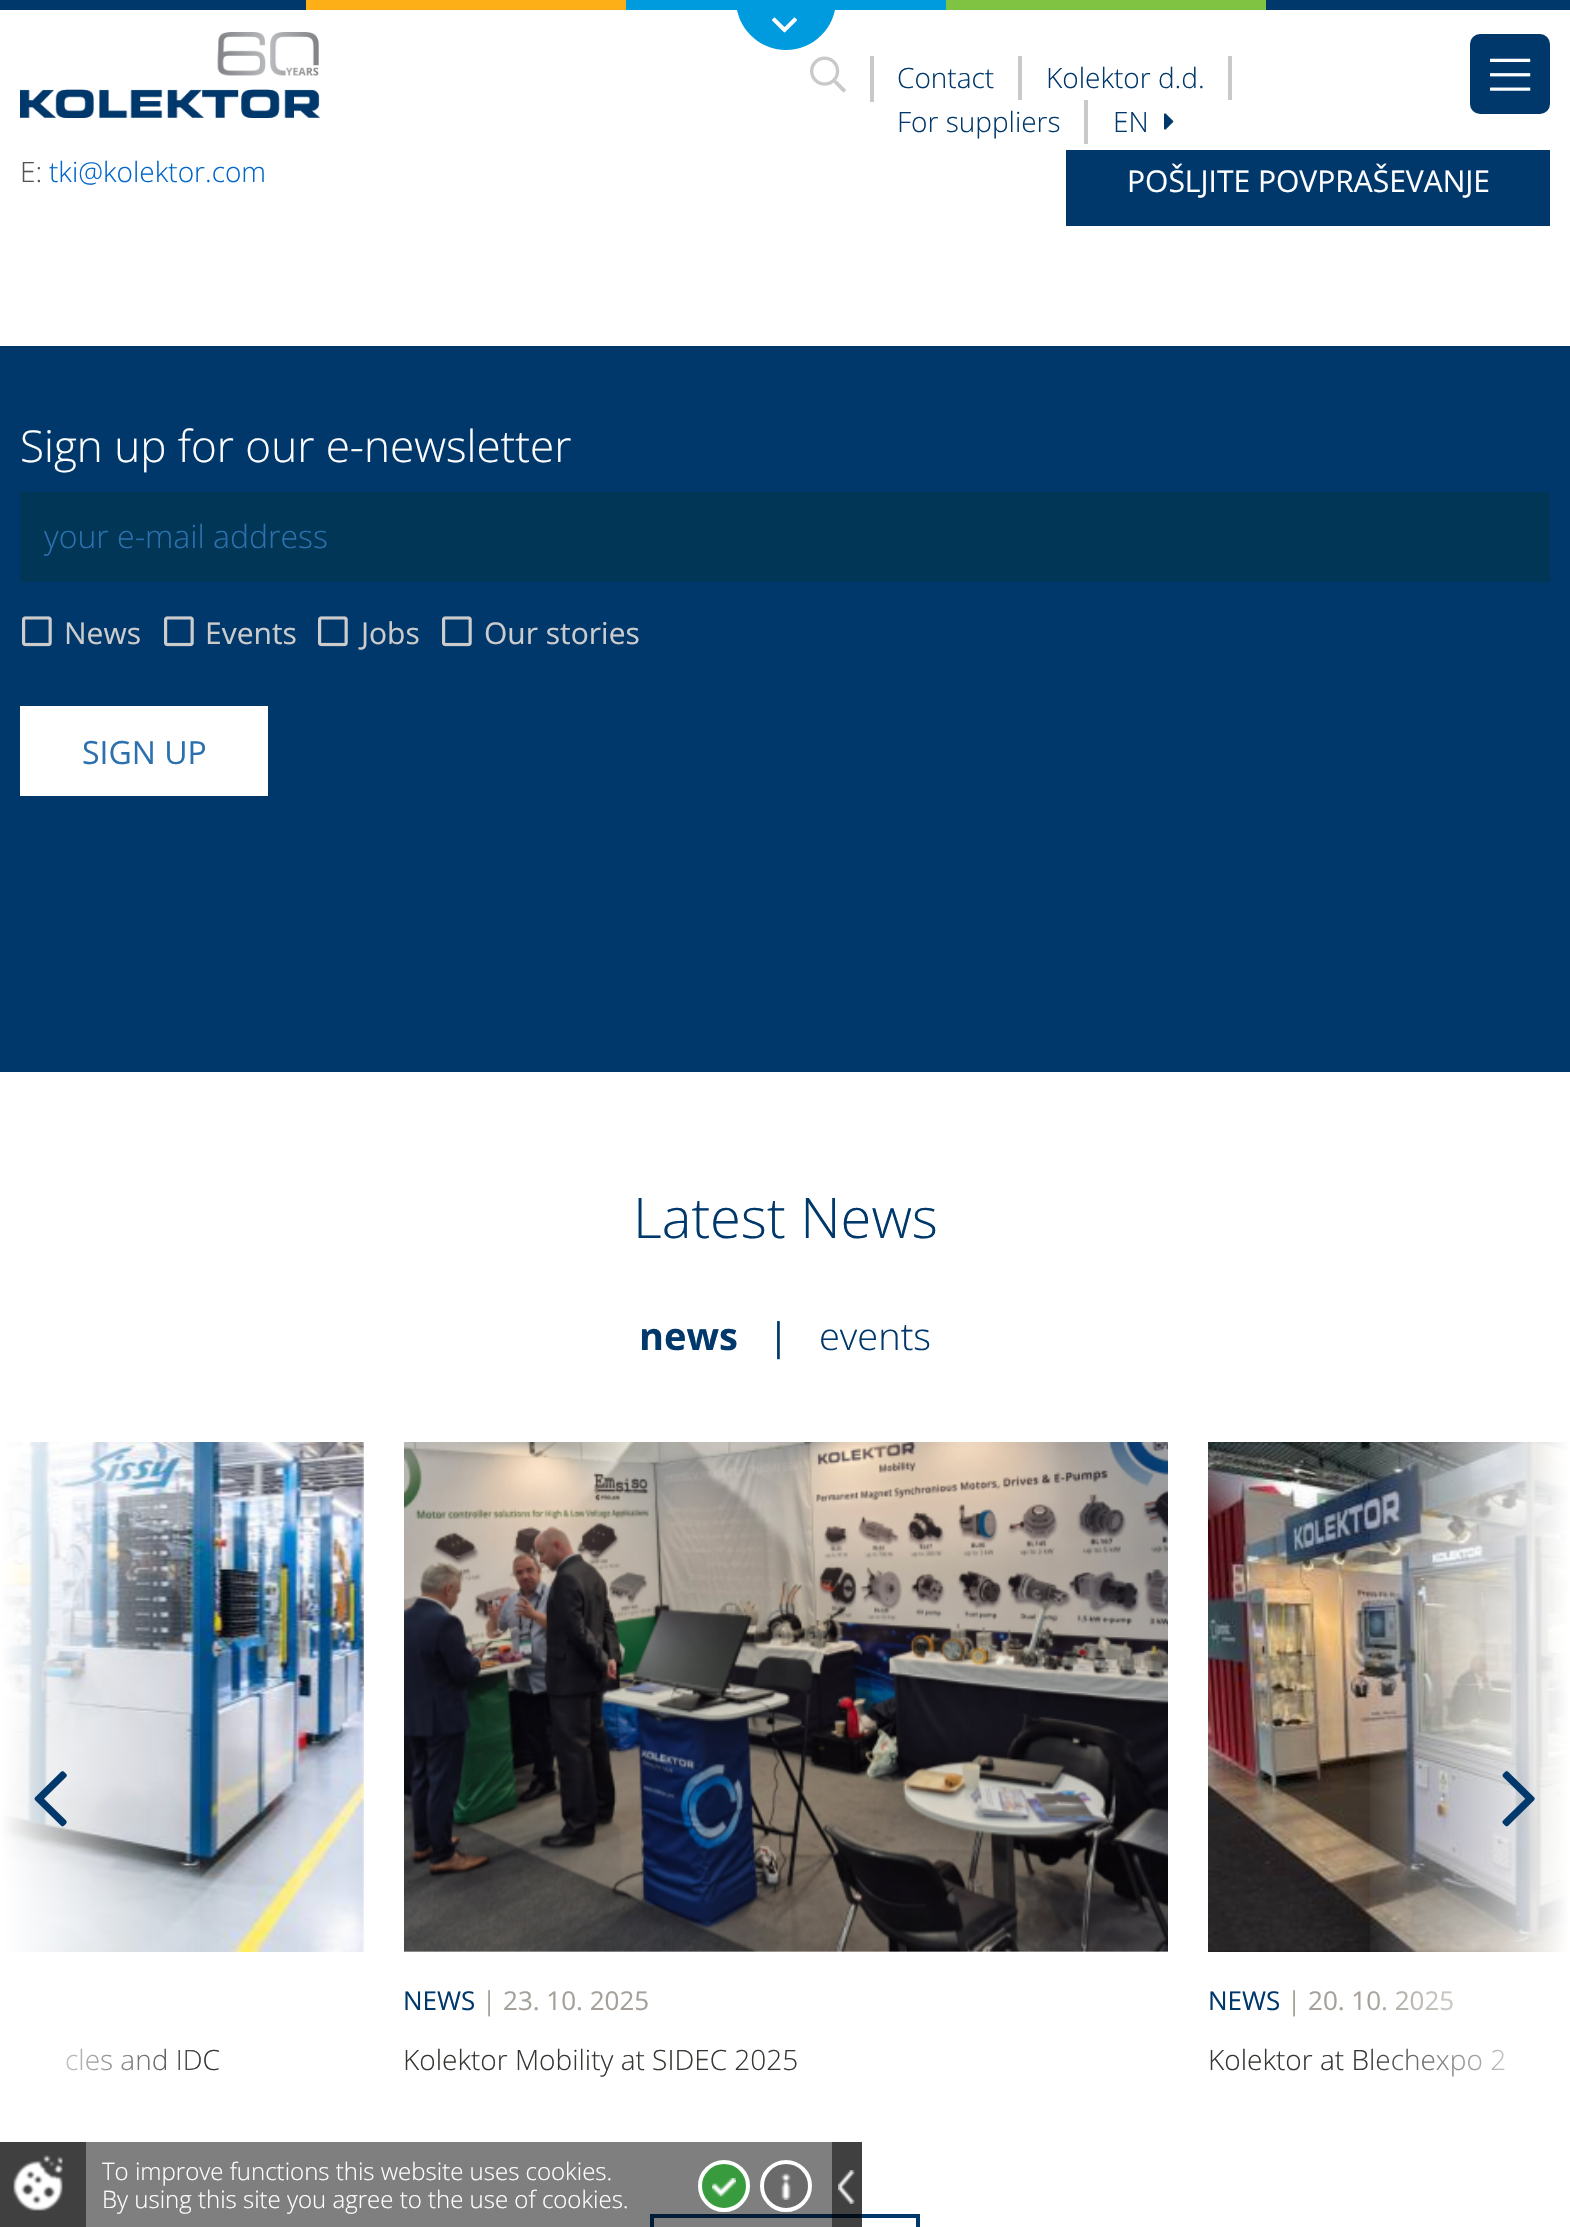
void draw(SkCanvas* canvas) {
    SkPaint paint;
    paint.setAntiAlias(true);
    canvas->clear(0xFFFFFFFF);
    paint.setColor(0xFF00386C);
    canvas->drawRect(SkRect::MakeXYWH(0, 0, 1570, 10), paint);
    paint.setColor(0xFFFCAF17);
    canvas->drawRect(SkRect::MakeXYWH(306, 0, 320, 10), paint);
    paint.setColor(0xFF009BDF);
    canvas->drawPath(SkPathBuilder().moveTo(736, 0).lineTo(836, 0).cubicTo(836, 27.5f, 813.5f, 50, 786, 50).cubicTo(758.5f, 50, 736, 27.5f, 736, 0).close().detach(), paint);
    canvas->drawRect(SkRect::MakeXYWH(626, 0, 320, 10), paint);
    canvas->drawImageRect(SkImages::DeferredFromEncodedData(SkData::MakeFromFileName("img1.png")), SkRect::MakeXYWH(772, 17, 25, 16), SkSamplingOptions());
    paint.setColor(0xFF80C342);
    canvas->drawRect(SkRect::MakeXYWH(946, 0, 320, 10), paint);
    canvas->drawImageRect(SkImages::DeferredFromEncodedData(SkData::MakeFromFileName("img2.png")), SkRect::MakeXYWH(20, 32, 300, 86), SkSamplingOptions());
    paint.setColor(0xFFC9C9C9);
    canvas->drawRect(SkRect::MakeXYWH(870, 56, 4, 46), paint);
    canvas->drawImageRect(SkImages::DeferredFromEncodedData(SkData::MakeFromFileName("img3.png")), SkRect::MakeXYWH(810, 56, 36, 37), SkSamplingOptions());
    canvas->drawRect(SkRect::MakeXYWH(1018, 56, 4, 44), paint);
    SkFont font1(fontMgr->matchFamilyStyle("Open Sans", SkFontStyle(300, SkFontStyle::kNormal_Width, SkFontStyle::kUpright_Slant)), 28);
    font1.setSubpixel(true);
    paint.setColor(0xFF00386C);
    canvas->drawString("Contact", 897, 88, font1, paint);
    paint.setColor(0xFFC9C9C9);
    canvas->drawRect(SkRect::MakeXYWH(1228, 56, 4, 44), paint);
    paint.setColor(0xFF00386C);
    canvas->drawString("Kolektor d.d.", 1046, 88, font1, paint);
    paint.setColor(0xFFC9C9C9);
    canvas->drawRect(SkRect::MakeXYWH(1084, 100, 4, 44), paint);
    paint.setColor(0xFF00386C);
    canvas->drawString("For suppliers", 897, 132, font1, paint);
    canvas->drawString("EN", 1113, 132, font1, paint);
    canvas->drawImageRect(SkImages::DeferredFromEncodedData(SkData::MakeFromFileName("img4.png")), SkRect::MakeXYWH(1164, 113, 10, 17), SkSamplingOptions());
    canvas->drawRoundRect(SkRect::MakeXYWH(1470, 34, 80, 80), 10, 10, paint);
    canvas->drawImageRect(SkImages::DeferredFromEncodedData(SkData::MakeFromFileName("img5.png")), SkRect::MakeXYWH(1490, 58, 41, 33), SkSamplingOptions());
    paint.setColor(0xFF535353);
    canvas->drawString("E:", 20, 182, font1, paint);
    paint.setColor(0xFF0066CC);
    canvas->drawString("tki@kolektor.com", 49, 182, font1, paint);
    paint.setColor(0xFF00386C);
    canvas->drawRect(SkRect::MakeXYWH(1066, 150, 484, 76), paint);
    SkFont font2(fontMgr->matchFamilyStyle("Open Sans", SkFontStyle::Normal()), 30);
    font2.setSubpixel(true);
    paint.setColor(0xFFFFFFFF);
    canvas->drawString("POŠLJITE POVPRAŠEVANJE", 1127, 192, font2, paint);
    paint.setColor(0xFF00386C);
    canvas->drawRect(SkRect::MakeXYWH(0, 346, 1570, 726), paint);
    SkFont font3(fontMgr->matchFamilyStyle("Open Sans", SkFontStyle(300, SkFontStyle::kNormal_Width, SkFontStyle::kUpright_Slant)), 44);
    font3.setSubpixel(true);
    paint.setColor(0xFFFFFFFF);
    canvas->drawString("Sign up for our e-newsletter", 20, 462, font3, paint);
    paint.setColor(0xFF013657);
    canvas->drawRect(SkRect::MakeXYWH(20, 492, 1530, 90), paint);
    SkFont font4(fontMgr->matchFamilyStyle("Open Sans", SkFontStyle(300, SkFontStyle::kNormal_Width, SkFontStyle::kUpright_Slant)), 32);
    font4.setSubpixel(true);
    paint.setColor(0xFF2C70AD);
    canvas->drawString("your e-mail address", 44, 548, font4, paint);
    canvas->drawImageRect(SkImages::DeferredFromEncodedData(SkData::MakeFromFileName("img6.png")), SkRect::MakeXYWH(22, 616, 30, 31), SkSamplingOptions());
    paint.setColor(0xFFCCCCCC);
    canvas->drawString("News", 64, 644, font2, paint);
    canvas->drawImageRect(SkImages::DeferredFromEncodedData(SkData::MakeFromFileName("img6.png")), SkRect::MakeXYWH(164, 616, 30, 31), SkSamplingOptions());
    canvas->drawString("Events", 205, 644, font2, paint);
    canvas->drawImageRect(SkImages::DeferredFromEncodedData(SkData::MakeFromFileName("img6.png")), SkRect::MakeXYWH(318, 616, 30, 31), SkSamplingOptions());
    canvas->drawString("Jobs", 361, 644, font2, paint);
    canvas->drawImageRect(SkImages::DeferredFromEncodedData(SkData::MakeFromFileName("img6.png")), SkRect::MakeXYWH(442, 616, 30, 31), SkSamplingOptions());
    canvas->drawString("Our stories", 484, 644, font2, paint);
    paint.setColor(0xFFFFFFFF);
    canvas->drawRect(SkRect::MakeXYWH(20, 706, 248, 90), paint);
    SkFont font5(fontMgr->matchFamilyStyle("Open Sans", SkFontStyle::Normal()), 32);
    font5.setSubpixel(true);
    paint.setColor(0xFF2C70AD);
    canvas->drawString("SIGN UP", 82, 764, font5, paint);
    SkFont font6(fontMgr->matchFamilyStyle("Open Sans", SkFontStyle(300, SkFontStyle::kNormal_Width, SkFontStyle::kUpright_Slant)), 56);
    font6.setSubpixel(true);
    paint.setColor(0xFF00386C);
    canvas->drawString("Latest News", 633, 1238, font6, paint);
    SkFont font7(fontMgr->matchFamilyStyle("Open Sans", SkFontStyle::Bold()), 38);
    font7.setSubpixel(true);
    canvas->drawString("news", 639, 1350, font7, paint);
    SkFont font8(fontMgr->matchFamilyStyle("Open Sans", SkFontStyle::Normal()), 38);
    font8.setSubpixel(true);
    canvas->drawString("|", 768, 1350, font8, paint);
    SkFont font9(fontMgr->matchFamilyStyle("Open Sans", SkFontStyle(300, SkFontStyle::kNormal_Width, SkFontStyle::kUpright_Slant)), 38);
    font9.setSubpixel(true);
    canvas->drawString("events", 819, 1350, font9, paint);
    canvas->drawImageRect(SkImages::DeferredFromEncodedData(SkData::MakeFromFileName("img9.png")), SkRect::MakeXYWH(1, 1442, 363, 510), SkSamplingOptions());
    paint.setColor(0xFF383633);
    canvas->drawString("cles and IDC", 65, 2070, font1, paint);
    {
        const SkColor colors[] = {0xFFFFFFFF, 0x0AFFFFFF};
        const float stops[] = {0, 1};
        const SkPoint ends[] = {{0, 1784}, {200, 1784}};
        paint.setShader(SkGradientShader::MakeLinear(ends, colors, stops, 2, SkTileMode::kClamp));
        paint.setAlpha(255);
    }
    canvas->drawRect(SkRect::MakeXYWH(1, 1442, 199, 629), paint);
    canvas->drawImageRect(SkImages::DeferredFromEncodedData(SkData::MakeFromFileName("img7.png")), SkRect::MakeXYWH(34, 1771, 33, 56), SkSamplingOptions());
    canvas->drawImageRect(SkImages::DeferredFromEncodedData(SkData::MakeFromFileName("img11.png")), SkRect::MakeXYWH(1208, 1442, 361, 510), SkSamplingOptions());
    SkFont font10(fontMgr->matchFamilyStyle("Open Sans", SkFontStyle::Normal()), 26);
    font10.setSubpixel(true);
    paint.setShader(nullptr);
    paint.setColor(0xFFA5A09A);
    canvas->drawString("| 20. 10. 2025", 1287, 2010, font10, paint);
    paint.setColor(0xFF383633);
    canvas->drawString("Kolektor at Blechexpo 2", 1208, 2070, font1, paint);
    {
        const SkColor colors[] = {0x0AFFFFFF, 0xFFFFFFFF};
        const float stops[] = {0, 1};
        const SkPoint ends[] = {{1370, 1784}, {1570, 1784}};
        paint.setShader(SkGradientShader::MakeLinear(ends, colors, stops, 2, SkTileMode::kClamp));
        paint.setAlpha(255);
    }
    canvas->drawRect(SkRect::MakeXYWH(1370, 1442, 199, 635), paint);
    canvas->drawImageRect(SkImages::DeferredFromEncodedData(SkData::MakeFromFileName("img8.png")), SkRect::MakeXYWH(1502, 1771, 33, 56), SkSamplingOptions());
    canvas->drawImageRect(SkImages::DeferredFromEncodedData(SkData::MakeFromFileName("img10.png")), SkRect::MakeXYWH(404, 1442, 764, 510), SkSamplingOptions());
    paint.setShader(nullptr);
    paint.setColor(0xFF00386C);
    canvas->drawString("NEWS", 403, 2010, font10, paint);
    paint.setColor(0xFFA5A09A);
    canvas->drawString("| 23. 10. 2025", 482, 2010, font10, paint);
    paint.setColor(0xFF383633);
    canvas->drawString("Kolektor Mobility at SIDEC 2025", 403, 2070, font1, paint);
    paint.setColor(0xFF00386C);
    canvas->drawString("NEWS", 1208, 2010, font10, paint);
    paint.setStyle(SkPaint::kStroke_Style);
    paint.setStrokeWidth(4);
    canvas->drawRect(SkRect::MakeXYWH(652, 2216, 266, 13), paint);
    paint.setStyle(SkPaint::kFill_Style);
    paint.setColor(0xFF808080);
    canvas->drawRect(SkRect::MakeXYWH(0, 2142, 86, 85), paint);
    paint.setColor(0x80000000);
    canvas->drawRect(SkRect::MakeXYWH(832, 2142, 30, 85), paint);
    canvas->drawRect(SkRect::MakeXYWH(0, 2142, 862, 85), paint);
    canvas->drawImageRect(SkImages::DeferredFromEncodedData(SkData::MakeFromFileName("img12.png")), SkRect::MakeXYWH(13, 2155, 50, 56), SkSamplingOptions());
    SkFont font11(fontMgr->matchFamilyStyle("Open Sans", SkFontStyle(300, SkFontStyle::kNormal_Width, SkFontStyle::kUpright_Slant)), 24);
    font11.setSubpixel(true);
    paint.setColor(0xFFFFFFFF);
    canvas->drawString("To improve functions this website uses cookies.", 102, 2180, font11, paint);
    canvas->drawString("By using this site you agree to the use of cookies.", 102, 2208, font11, paint);
    paint.setColor(0xFF389C3F);
    canvas->drawCircle(724, 2186, 26, paint);
    canvas->drawImageRect(SkImages::DeferredFromEncodedData(SkData::MakeFromFileName("img13.png")), SkRect::MakeXYWH(712, 2178, 24, 19), SkSamplingOptions());
    paint.setStyle(SkPaint::kStroke_Style);
    paint.setColor(0xFFFFFFFF);
    canvas->drawCircle(724, 2186, 24, paint);
    paint.setStyle(SkPaint::kFill_Style);
    paint.setColor(0xFF6A6A6A);
    canvas->drawCircle(786, 2186, 26, paint);
    canvas->drawImageRect(SkImages::DeferredFromEncodedData(SkData::MakeFromFileName("img14.png")), SkRect::MakeXYWH(781, 2173, 10, 27), SkSamplingOptions());
    paint.setStyle(SkPaint::kStroke_Style);
    paint.setColor(0xFFFFFFFF);
    canvas->drawCircle(786, 2186, 24, paint);
    canvas->drawImageRect(SkImages::DeferredFromEncodedData(SkData::MakeFromFileName("img15.png")), SkRect::MakeXYWH(838, 2170, 17, 34), SkSamplingOptions());
}
